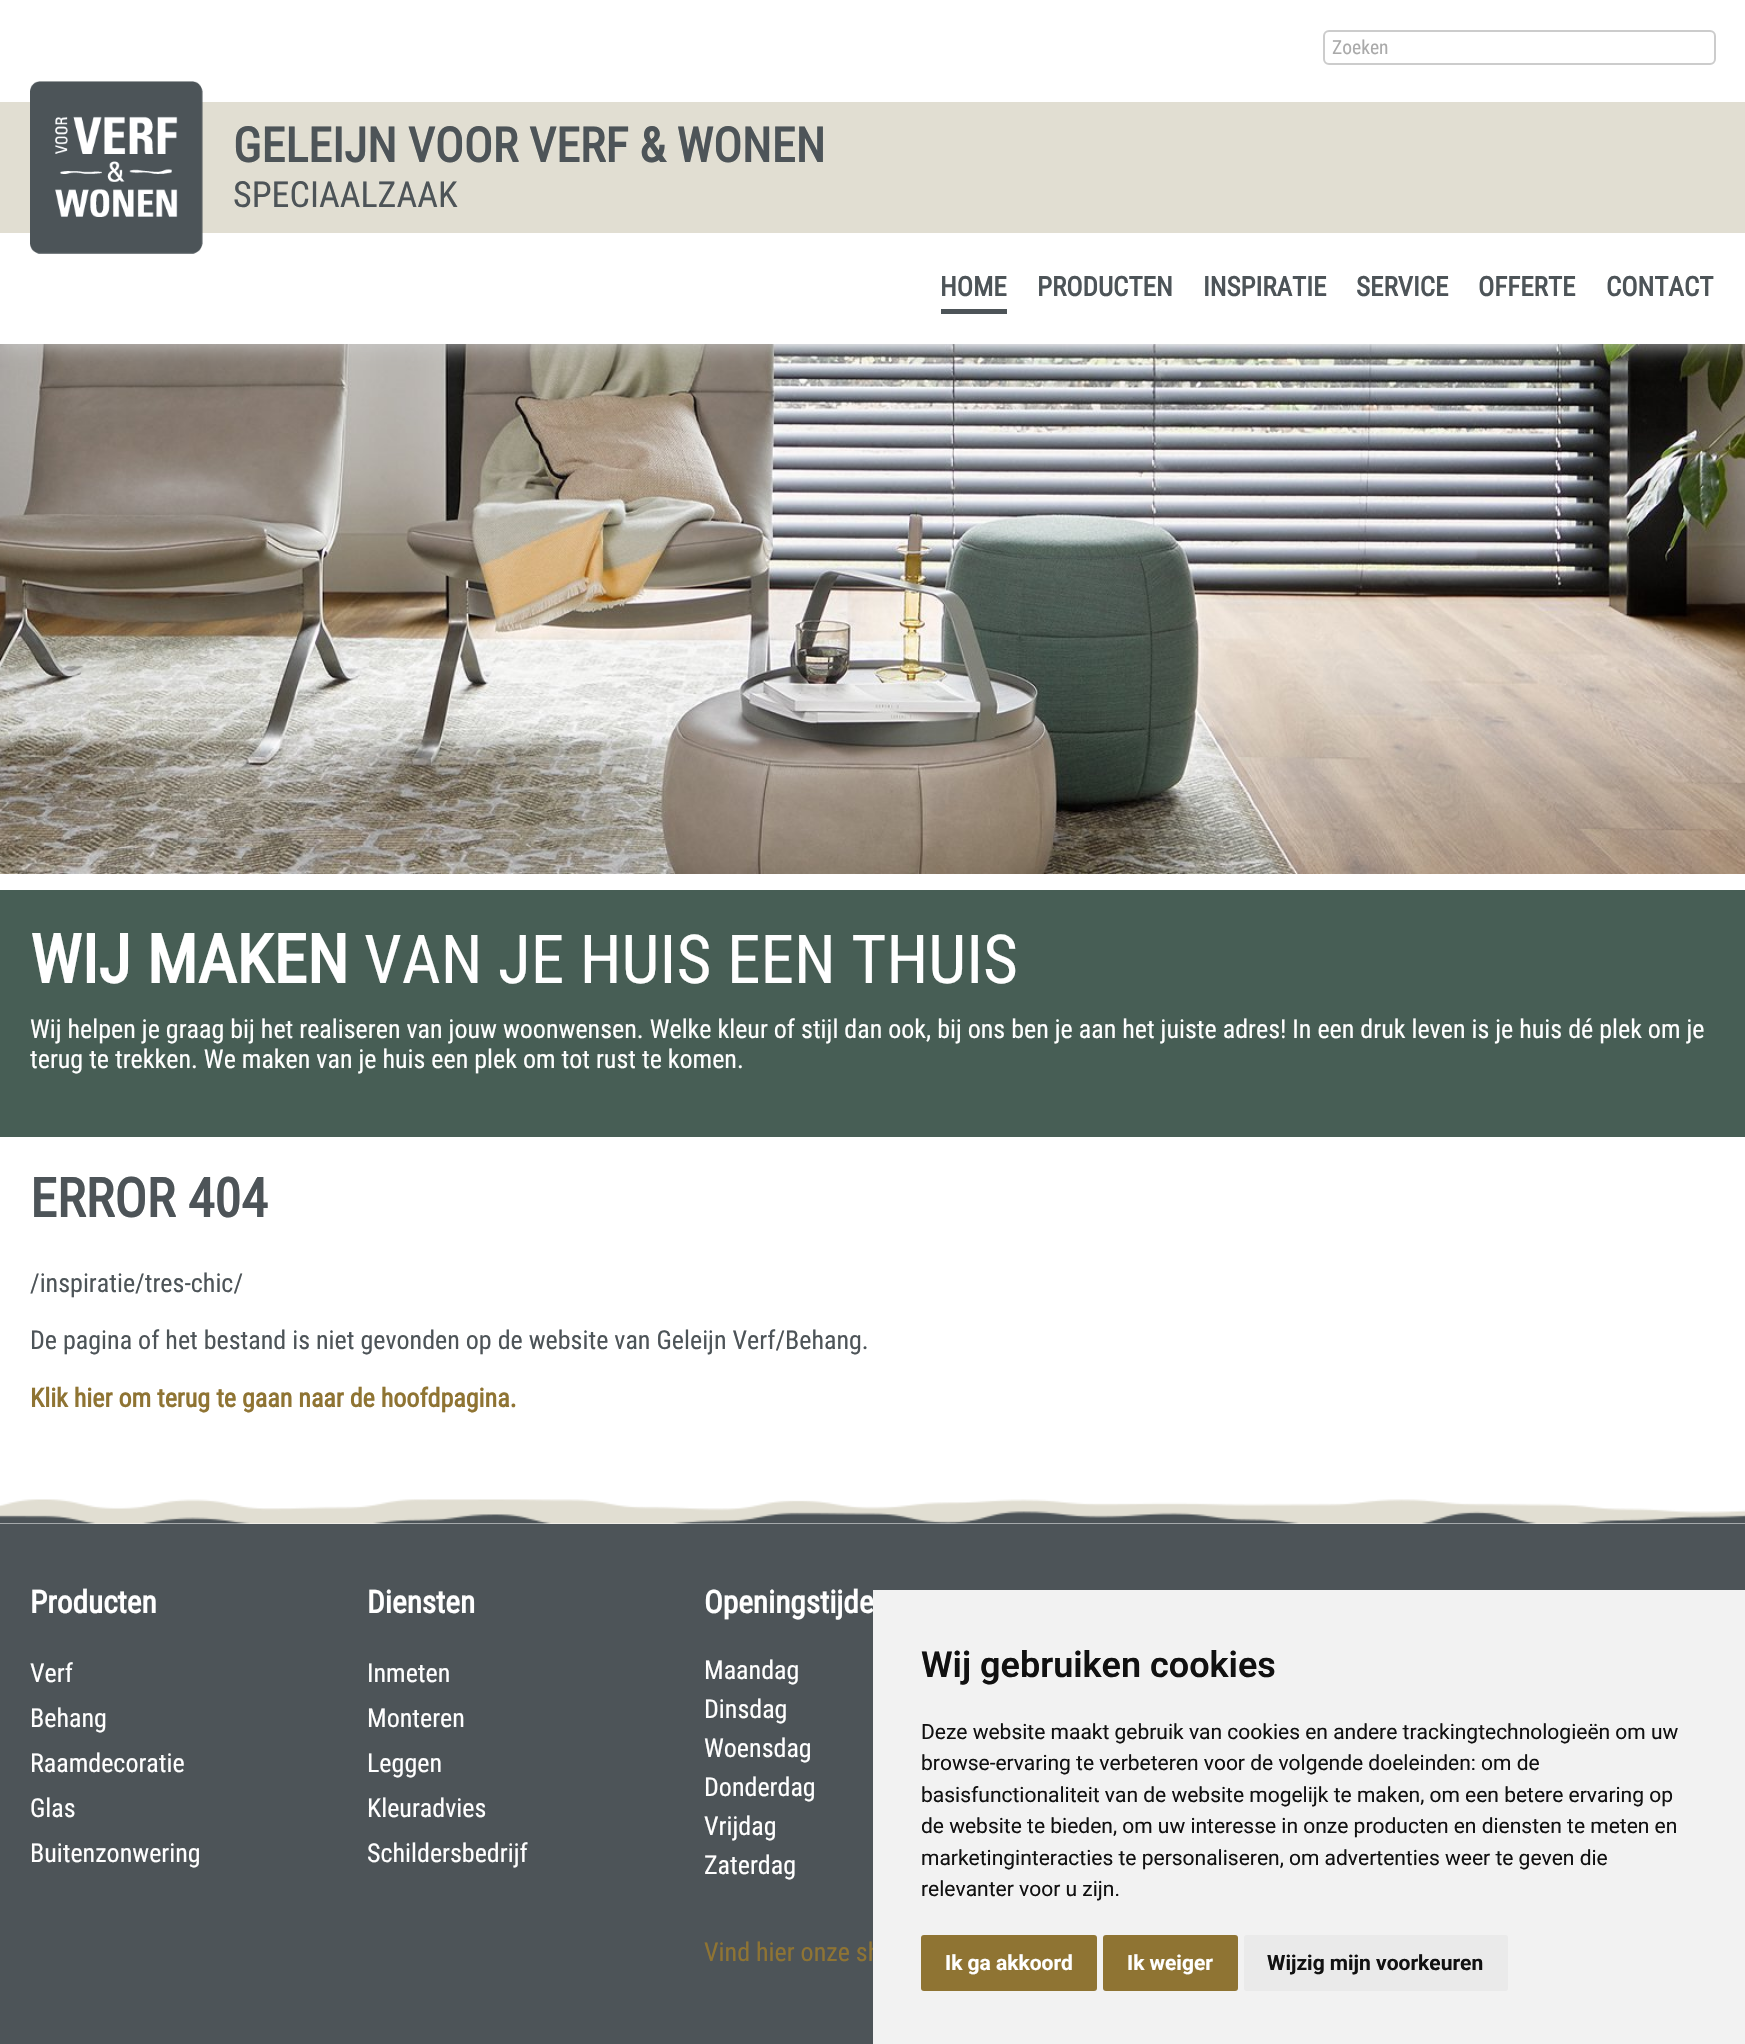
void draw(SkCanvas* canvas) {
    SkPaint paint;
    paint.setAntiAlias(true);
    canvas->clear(0xFFFFFFFF);
    canvas->drawImageRect(SkImages::DeferredFromEncodedData(SkData::MakeFromFileName("img2.png")), SkRect::MakeXYWH(0, 344, 1745, 530), SkSamplingOptions());
    paint.setColor(0xFFCCCCCC);
    paint.setMaskFilter(SkMaskFilter::MakeBlur(kNormal_SkBlurStyle, 11));
    canvas->drawRect(SkRect::MakeXYWH(0, 0, 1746, 344), paint);
    paint.setMaskFilter(nullptr);
    paint.setColor(0xFFFFFFFF);
    canvas->drawRect(SkRect::MakeXYWH(0, 0, 1745, 344), paint);
    paint.setStyle(SkPaint::kStroke_Style);
    paint.setStrokeWidth(2);
    paint.setColor(0xFFCCCCCC);
    canvas->drawRoundRect(SkRect::MakeXYWH(1324, 31, 391, 33), 5, 5, paint);
    SkFont font1(fontMgr->matchFamilyStyle("Roboto Condensed", SkFontStyle::Normal()), 19.5f);
    font1.setSubpixel(true);
    paint.setStyle(SkPaint::kFill_Style);
    paint.setColor(0xFFAAAAAA);
    canvas->drawString("Zoeken", 1332, 54, font1, paint);
    paint.setColor(0xFFE1DED2);
    canvas->drawRect(SkRect::MakeXYWH(0, 102, 1745, 131), paint);
    canvas->drawImageRect(SkImages::DeferredFromEncodedData(SkData::MakeFromFileName("img1.png")), SkRect::MakeXYWH(30, 81, 173, 173), SkSamplingOptions());
    SkFont font2(fontMgr->matchFamilyStyle("Roboto Condensed", SkFontStyle::Bold()), 48);
    font2.setSubpixel(true);
    paint.setColor(0xFF4D5458);
    canvas->drawString("GELEIJN VOOR VERF & WONEN", 233, 162, font2, paint);
    SkFont font3(fontMgr->matchFamilyStyle("Roboto Condensed", SkFontStyle::Normal()), 36);
    font3.setSubpixel(true);
    canvas->drawString("SPECIAALZAAK", 233, 207, font3, paint);
    canvas->drawRect(SkRect::MakeXYWH(941, 309, 66, 5), paint);
    SkFont font4(fontMgr->matchFamilyStyle("Roboto Condensed", SkFontStyle::Bold()), 27);
    font4.setSubpixel(true);
    canvas->drawString("HOME", 940, 296, font4, paint);
    canvas->drawString("PRODUCTEN", 1037, 296, font4, paint);
    canvas->drawString("INSPIRATIE", 1203, 296, font4, paint);
    canvas->drawString("SERVICE", 1356, 296, font4, paint);
    canvas->drawString("OFFERTE", 1478, 296, font4, paint);
    canvas->drawString("CONTACT", 1606, 296, font4, paint);
    paint.setColor(0xFF475E55);
    canvas->drawRect(SkRect::MakeXYWH(0, 890, 1745, 247), paint);
    SkFont font5(fontMgr->matchFamilyStyle("Roboto Condensed", SkFontStyle::Bold()), 67.5f);
    font5.setSubpixel(true);
    paint.setColor(0xFFFFFFFF);
    canvas->drawString("WIJ MAKEN", 30, 983, font5, paint);
    SkFont font6(fontMgr->matchFamilyStyle("Roboto Condensed", SkFontStyle::Normal()), 67.5f);
    font6.setSubpixel(true);
    canvas->drawString("VAN JE HUIS EEN THUIS", 364, 983, font6, paint);
    SkFont font7(fontMgr->matchFamilyStyle("Roboto Condensed", SkFontStyle::Normal()), 26);
    font7.setSubpixel(true);
    canvas->drawString("Wij helpen je graag bij het realiseren van jouw woonwensen. Welke kleur of stijl dan ook, bij ons ben je aan het juiste adres! In een druk leven is je huis dé plek om je", 30, 1038, font7, paint);
    canvas->drawString("terug te trekken. We maken van je huis een plek om tot rust te komen.", 30, 1068, font7, paint);
    SkFont font8(fontMgr->matchFamilyStyle("Roboto Condensed", SkFontStyle::Bold()), 54);
    font8.setSubpixel(true);
    paint.setColor(0xFF4D5458);
    canvas->drawString("ERROR 404", 30, 1217, font8, paint);
    canvas->drawString("/inspiratie/tres-chic/", 30, 1292, font7, paint);
    canvas->drawString("De pagina of het bestand is niet gevonden op de website van Geleijn Verf/Behang.", 30, 1349, font7, paint);
    SkFont font9(fontMgr->matchFamilyStyle("Roboto Condensed", SkFontStyle::Bold()), 26);
    font9.setSubpixel(true);
    paint.setColor(0xFF8F7433);
    canvas->drawString("Klik hier om terug te gaan naar de hoofdpagina.", 30, 1407, font9, paint);
    canvas->drawImageRect(SkImages::DeferredFromEncodedData(SkData::MakeFromFileName("img3.png")), SkRect::MakeXYWH(0, 1499, 1745, 25), SkSamplingOptions());
    paint.setColor(0xFF4D5458);
    canvas->drawRect(SkRect::MakeXYWH(0, 1524, 1745, 520), paint);
    SkFont font10(fontMgr->matchFamilyStyle("Roboto Condensed", SkFontStyle::Bold()), 31.25f);
    font10.setSubpixel(true);
    paint.setColor(0xFFFFFFFF);
    canvas->drawString("Producten", 30, 1613, font10, paint);
    canvas->drawString("Verf", 30, 1682, font7, paint);
    canvas->drawString("Behang", 30, 1727, font7, paint);
    canvas->drawString("Raamdecoratie", 30, 1772, font7, paint);
    canvas->drawString("Glas", 30, 1817, font7, paint);
    canvas->drawString("Buitenzonwering", 30, 1862, font7, paint);
    canvas->drawString("Diensten", 367, 1613, font10, paint);
    canvas->drawString("Inmeten", 367, 1682, font7, paint);
    canvas->drawString("Monteren", 367, 1727, font7, paint);
    canvas->drawString("Leggen", 367, 1772, font7, paint);
    canvas->drawString("Kleuradvies", 367, 1817, font7, paint);
    canvas->drawString("Schildersbedrijf", 367, 1862, font7, paint);
    canvas->drawString("Openingstijde", 704, 1613, font10, paint);
    canvas->drawString("Maandag", 704, 1679, font7, paint);
    canvas->drawString("Dinsdag", 704, 1718, font7, paint);
    canvas->drawString("Woensdag", 704, 1757, font7, paint);
    canvas->drawString("Donderdag", 704, 1796, font7, paint);
    canvas->drawString("Vrijdag", 704, 1835, font7, paint);
    canvas->drawString("Zaterdag", 704, 1874, font7, paint);
    paint.setColor(0xFF8F7433);
    canvas->drawString("Vind hier onze sh", 704, 1961, font7, paint);
    paint.setColor(0xFFF2F2F2);
    canvas->drawRect(SkRect::MakeXYWH(873, 1590, 872, 454), paint);
    SkFont font11(fontMgr->matchFamilyStyle("Roboto", SkFontStyle(600, SkFontStyle::kNormal_Width, SkFontStyle::kUpright_Slant)), 36);
    font11.setSubpixel(true);
    paint.setColor(0xFF111111);
    canvas->drawString("Wij gebruiken cookies", 921, 1677, font11, paint);
    SkFont font12(fontMgr->matchFamilyStyle("Roboto", SkFontStyle::Normal()), 21);
    font12.setSubpixel(true);
    canvas->drawString("Deze website maakt gebruik van cookies en andere trackingtechnologieën om uw", 921, 1739, font12, paint);
    canvas->drawString("browse-ervaring te verbeteren voor de volgende doeleinden: om de", 921, 1770, font12, paint);
    canvas->drawString("basisfunctionaliteit van de website mogelijk te maken, om een betere ervaring op", 921, 1802, font12, paint);
    canvas->drawString("de website te bieden, om uw interesse in onze producten en diensten te meten en", 921, 1833, font12, paint);
    canvas->drawString("marketinginteracties te personaliseren, om advertenties weer te geven die", 921, 1865, font12, paint);
    canvas->drawString("relevanter voor u zijn.", 921, 1896, font12, paint);
    paint.setColor(0xFF8F7433);
    canvas->drawRoundRect(SkRect::MakeXYWH(921, 1935, 176, 56), 3, 3, paint);
    SkFont font13(fontMgr->matchFamilyStyle("Roboto", SkFontStyle::Bold()), 21);
    font13.setSubpixel(true);
    paint.setColor(0xFFFFFFFF);
    canvas->drawString("Ik ga akkoord", 945, 1970, font13, paint);
    paint.setColor(0xFF8F7433);
    canvas->drawRoundRect(SkRect::MakeXYWH(1103, 1935, 135, 56), 3, 3, paint);
    paint.setColor(0xFFFFFFFF);
    canvas->drawString("Ik weiger", 1127, 1970, font13, paint);
    paint.setColor(0xFFEAEAEA);
    canvas->drawRoundRect(SkRect::MakeXYWH(1244, 1935, 264, 56), 3, 3, paint);
    paint.setColor(0xFF111111);
    canvas->drawString("Wijzig mijn voorkeuren", 1267, 1970, font13, paint);
}
